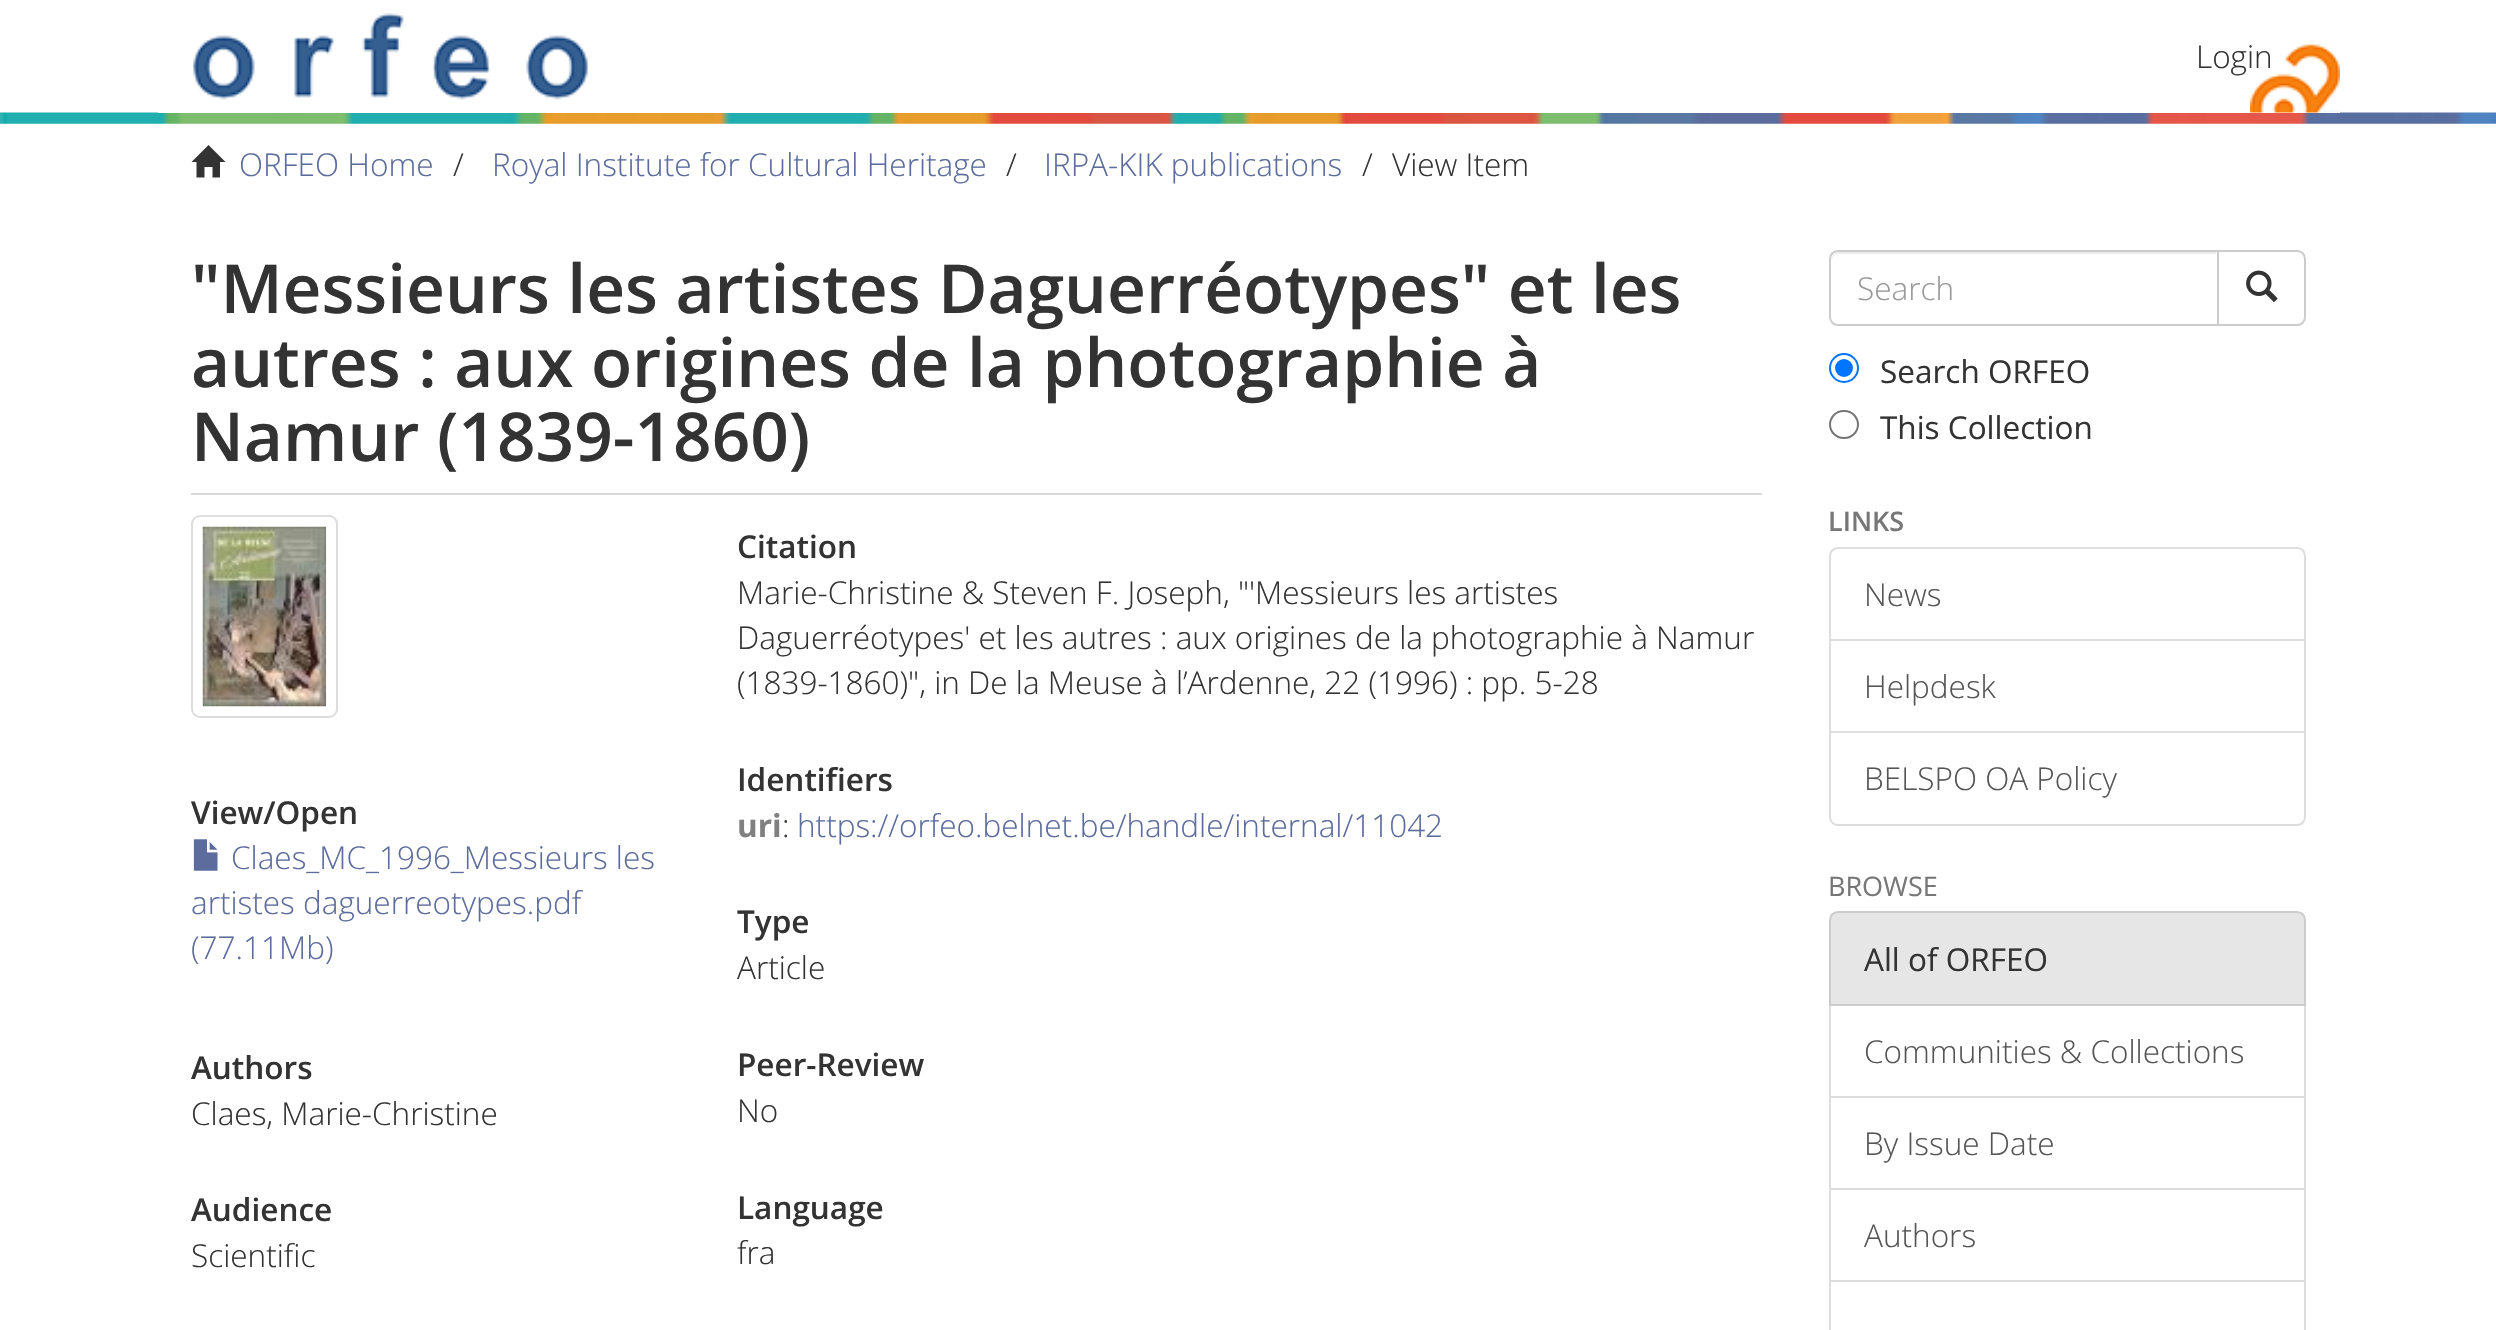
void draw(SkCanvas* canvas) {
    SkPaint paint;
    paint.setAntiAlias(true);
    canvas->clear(0xFFFFFFFF);
    canvas->drawImageRect(SkImages::DeferredFromEncodedData(SkData::MakeFromFileName("img3.png")), SkRect::MakeXYWH(0, 112, 2496, 12), SkSamplingOptions());
    paint.setColor(0xFFFFFFFF);
    canvas->drawRect(SkRect::MakeXYWH(158, 112, 2182, 1), paint);
    canvas->drawImageRect(SkImages::DeferredFromEncodedData(SkData::MakeFromFileName("img1.png")), SkRect::MakeXYWH(2250, 44, 90, 69), SkSamplingOptions());
    canvas->drawImageRect(SkImages::DeferredFromEncodedData(SkData::MakeFromFileName("img2.png")), SkRect::MakeXYWH(193, 13, 395, 87), SkSamplingOptions());
    SkFont font1(fontMgr->matchFamilyStyle("Open Sans", SkFontStyle(300, SkFontStyle::kNormal_Width, SkFontStyle::kUpright_Slant)), 31.5f);
    font1.setSubpixel(true);
    paint.setColor(0xFF333333);
    canvas->drawString("Login", 2196, 68, font1, paint);
    canvas->drawPath(SkPathBuilder().moveTo(191.5f, 162).lineTo(208.5f, 145).lineTo(225.5f, 162).lineTo(220, 162).lineTo(220, 177.5f).lineTo(212.5f, 177.5f).lineTo(212.5f, 167).lineTo(204.5f, 167).lineTo(204.5f, 177.5f).lineTo(196.5f, 177.5f).lineTo(196.5f, 162).close().detach(), paint);
    paint.setColor(0xFF5C6C9D);
    canvas->drawString("ORFEO Home", 239, 176, font1, paint);
    paint.setColor(0xFF333333);
    canvas->drawString("/", 453, 176, font1, paint);
    paint.setColor(0xFF5C6C9D);
    canvas->drawString("Royal Institute for Cultural Heritage", 492, 176, font1, paint);
    paint.setColor(0xFF333333);
    canvas->drawString("/", 1006, 176, font1, paint);
    paint.setColor(0xFF5C6C9D);
    canvas->drawString("IRPA-KIK publications", 1044, 176, font1, paint);
    paint.setColor(0xFF333333);
    canvas->drawString("/", 1362, 176, font1, paint);
    canvas->drawString("View Item", 1392, 176, font1, paint);
    paint.setColor(0xFFD9D9D9);
    canvas->drawRect(SkRect::MakeXYWH(191, 493, 1571, 2), paint);
    SkFont font2(fontMgr->matchFamilyStyle("Open Sans", SkFontStyle(600, SkFontStyle::kNormal_Width, SkFontStyle::kUpright_Slant)), 67.5f);
    font2.setSubpixel(true);
    paint.setColor(0xFF333333);
    canvas->drawString("\"Messieurs les artistes Daguerréotypes\" et les", 191, 313, font2, paint);
    canvas->drawString("autres : aux origines de la photographie à", 191, 387, font2, paint);
    canvas->drawString("Namur (1839-1860)", 191, 461, font2, paint);
    paint.setStyle(SkPaint::kStroke_Style);
    paint.setStrokeWidth(2);
    paint.setColor(0xFFDDDDDD);
    canvas->drawRoundRect(SkRect::MakeXYWH(192, 516, 145, 201), 8, 8, paint);
    canvas->drawImageRect(SkImages::DeferredFromEncodedData(SkData::MakeFromFileName("img4.png")), SkRect::MakeXYWH(202, 526, 125, 181), SkSamplingOptions());
    SkFont font3(fontMgr->matchFamilyStyle("Open Sans", SkFontStyle(600, SkFontStyle::kNormal_Width, SkFontStyle::kUpright_Slant)), 31.5f);
    font3.setSubpixel(true);
    paint.setStyle(SkPaint::kFill_Style);
    paint.setColor(0xFF333333);
    canvas->drawString("View/Open", 191, 824, font3, paint);
    canvas->drawImageRect(SkImages::DeferredFromEncodedData(SkData::MakeFromFileName("img5.png")), SkRect::MakeXYWH(193, 839, 25, 32), SkSamplingOptions());
    paint.setColor(0xFF5C6C9D);
    canvas->drawString("Claes_MC_1996_Messieurs les", 231, 869, font1, paint);
    canvas->drawString("artistes daguerreotypes.pdf", 191, 914, font1, paint);
    canvas->drawString("(77.11Mb)", 191, 959, font1, paint);
    paint.setColor(0xFF333333);
    canvas->drawString("Authors", 191, 1079, font3, paint);
    canvas->drawString("Claes, Marie-Christine", 191, 1125, font1, paint);
    canvas->drawString("Audience", 191, 1221, font3, paint);
    canvas->drawString("Scientific", 191, 1267, font1, paint);
    canvas->drawString("Citation", 737, 558, font3, paint);
    canvas->drawString("Marie-Christine & Steven F. Joseph, \"'Messieurs les artistes", 737, 604, font1, paint);
    canvas->drawString("Daguerréotypes' et les autres : aux origines de la photographie à Namur", 737, 649, font1, paint);
    canvas->drawString("(1839-1860)\", in De la Meuse à l’Ardenne, 22 (1996) : pp. 5-28", 737, 694, font1, paint);
    canvas->drawString("Identifiers", 737, 791, font3, paint);
    SkFont font4(fontMgr->matchFamilyStyle("Open Sans", SkFontStyle::Bold()), 31.5f);
    font4.setSubpixel(true);
    paint.setColor(0xFF808080);
    canvas->drawString("uri", 737, 837, font4, paint);
    paint.setColor(0xFF333333);
    canvas->drawString(":", 782, 837, font1, paint);
    paint.setColor(0xFF5C6C9D);
    canvas->drawString("https://orfeo.belnet.be/handle/internal/11042", 797, 837, font1, paint);
    paint.setColor(0xFF333333);
    canvas->drawString("Type", 737, 933, font3, paint);
    canvas->drawString("Article", 737, 979, font1, paint);
    canvas->drawString("Peer-Review", 737, 1076, font3, paint);
    canvas->drawString("No", 737, 1122, font1, paint);
    canvas->drawString("Language", 737, 1219, font3, paint);
    canvas->drawString("fra", 737, 1264, font1, paint);
    paint.setStyle(SkPaint::kStroke_Style);
    paint.setColor(0xFFCCCCCC);
    canvas->drawPath(SkPathBuilder().moveTo(2217, 251).lineTo(2297, 251).cubicTo(2301.5f, 251, 2305, 254.5f, 2305, 259).lineTo(2305, 317).cubicTo(2305, 321.5f, 2301.5f, 325, 2297, 325).lineTo(2217, 325).close().detach(), paint);
    paint.setStyle(SkPaint::kFill_Style);
    paint.setColor(0xFFFFFFFF);
    canvas->drawPath(SkPathBuilder().moveTo(1838, 250).lineTo(2219, 250).lineTo(2219, 326).lineTo(1838, 326).cubicTo(1833, 326, 1829, 322, 1829, 317).lineTo(1829, 259).cubicTo(1829, 254, 1833, 250, 1838, 250).close().detach(), paint);
    paint.setColor(0xFFECECEC);
    canvas->drawPath(SkPathBuilder().moveTo(1838, 254).lineTo(2216, 254).lineTo(2216, 252).lineTo(1839, 252).cubicTo(1835, 252, 1832, 255, 1832, 259).lineTo(1832, 261).cubicTo(1832, 257, 1835, 254, 1838, 254).close().detach(), paint);
    paint.setStyle(SkPaint::kStroke_Style);
    paint.setColor(0xFFCCCCCC);
    canvas->drawPath(SkPathBuilder().moveTo(1838, 251).lineTo(2218, 251).lineTo(2218, 325).lineTo(1838, 325).cubicTo(1833.5f, 325, 1830, 321.5f, 1830, 317).lineTo(1830, 259).cubicTo(1830, 254.5f, 1833.5f, 251, 1838, 251).close().detach(), paint);
    paint.setStyle(SkPaint::kFill_Style);
    paint.setColor(0xFF999999);
    canvas->drawString("Search", 1857, 300, font1, paint);
    canvas->drawImageRect(SkImages::DeferredFromEncodedData(SkData::MakeFromFileName("img6.png")), SkRect::MakeXYWH(2246, 270, 32, 32), SkSamplingOptions());
    paint.setStyle(SkPaint::kStroke_Style);
    paint.setColor(0xFF0075FF);
    canvas->drawCircle(1844, 368, 14, paint);
    paint.setStyle(SkPaint::kFill_Style);
    canvas->drawCircle(1844, 368, 9, paint);
    SkFont font5(fontMgr->matchFamilyStyle("Open Sans", SkFontStyle::Normal()), 31.5f);
    font5.setSubpixel(true);
    paint.setColor(0xFF333333);
    canvas->drawString("Search ORFEO", 1880, 383, font5, paint);
    paint.setStyle(SkPaint::kStroke_Style);
    paint.setColor(0xFF767676);
    canvas->drawRoundRect(SkRect::MakeXYWH(1830, 411, 28, 27), 13.5f, 13.5f, paint);
    paint.setStyle(SkPaint::kFill_Style);
    paint.setColor(0xFF333333);
    canvas->drawString("This Collection", 1880, 439, font5, paint);
    SkFont font6(fontMgr->matchFamilyStyle("Open Sans", SkFontStyle(600, SkFontStyle::kNormal_Width, SkFontStyle::kUpright_Slant)), 27);
    font6.setSubpixel(true);
    paint.setColor(0xFF777777);
    canvas->drawString("LINKS", 1828, 531, font6, paint);
    paint.setStyle(SkPaint::kStroke_Style);
    paint.setColor(0xFFDDDDDD);
    canvas->drawPath(SkPathBuilder().moveTo(1838, 548).lineTo(2297, 548).cubicTo(2301.5f, 548, 2305, 551.5f, 2305, 556).lineTo(2305, 640).lineTo(1830, 640).lineTo(1830, 556).cubicTo(1830, 551.5f, 1833.5f, 548, 1838, 548).close().detach(), paint);
    paint.setStyle(SkPaint::kFill_Style);
    paint.setColor(0xFF555555);
    canvas->drawString("News", 1864, 606, font1, paint);
    paint.setStyle(SkPaint::kStroke_Style);
    paint.setColor(0xFFDDDDDD);
    canvas->drawRect(SkRect::MakeXYWH(1830, 640, 475, 93), paint);
    paint.setStyle(SkPaint::kFill_Style);
    paint.setColor(0xFF555555);
    canvas->drawString("Helpdesk", 1864, 698, font1, paint);
    paint.setColor(0xFFFFFFFF);
    canvas->drawPath(SkPathBuilder().moveTo(1830, 732).lineTo(2305, 732).lineTo(2305, 817).cubicTo(2305, 821.5f, 2301.5f, 825, 2297, 825).lineTo(1838, 825).cubicTo(1833.5f, 825, 1830, 821.5f, 1830, 817).close().detach(), paint);
    paint.setStyle(SkPaint::kStroke_Style);
    paint.setColor(0xFFDDDDDD);
    canvas->drawPath(SkPathBuilder().moveTo(1830, 732).lineTo(2305, 732).lineTo(2305, 817).cubicTo(2305, 821.5f, 2301.5f, 825, 2297, 825).lineTo(1838, 825).cubicTo(1833.5f, 825, 1830, 821.5f, 1830, 817).close().detach(), paint);
    paint.setStyle(SkPaint::kFill_Style);
    paint.setColor(0xFF555555);
    canvas->drawString("BELSPO OA Policy", 1864, 790, font1, paint);
    SkFont font7(fontMgr->matchFamilyStyle("Open Sans", SkFontStyle::Normal()), 27);
    font7.setSubpixel(true);
    paint.setColor(0xFF777777);
    canvas->drawString("BROWSE", 1828, 896, font7, paint);
    paint.setStyle(SkPaint::kStroke_Style);
    paint.setColor(0xFFDDDDDD);
    canvas->drawRect(SkRect::MakeXYWH(1830, 1005, 475, 92), paint);
    paint.setStyle(SkPaint::kFill_Style);
    paint.setColor(0xFFE6E6E6);
    canvas->drawPath(SkPathBuilder().moveTo(1838, 912).lineTo(2297, 912).cubicTo(2301.5f, 912, 2305, 915.5f, 2305, 920).lineTo(2305, 1005).lineTo(1830, 1005).lineTo(1830, 920).cubicTo(1830, 915.5f, 1833.5f, 912, 1838, 912).close().detach(), paint);
    paint.setStyle(SkPaint::kStroke_Style);
    paint.setColor(0xFFCCCCCC);
    canvas->drawPath(SkPathBuilder().moveTo(1838, 912).lineTo(2297, 912).cubicTo(2301.5f, 912, 2305, 915.5f, 2305, 920).lineTo(2305, 1005).lineTo(1830, 1005).lineTo(1830, 920).cubicTo(1830, 915.5f, 1833.5f, 912, 1838, 912).close().detach(), paint);
    paint.setStyle(SkPaint::kFill_Style);
    paint.setColor(0xFF333333);
    canvas->drawString("All of ORFEO", 1864, 971, font5, paint);
    paint.setColor(0xFF555555);
    canvas->drawString("Communities & Collections", 1864, 1063, font1, paint);
    paint.setStyle(SkPaint::kStroke_Style);
    paint.setColor(0xFFDDDDDD);
    canvas->drawRect(SkRect::MakeXYWH(1830, 1097, 475, 92), paint);
    paint.setStyle(SkPaint::kFill_Style);
    paint.setColor(0xFF555555);
    canvas->drawString("By Issue Date", 1864, 1155, font1, paint);
    paint.setStyle(SkPaint::kStroke_Style);
    paint.setColor(0xFFDDDDDD);
    canvas->drawRect(SkRect::MakeXYWH(1830, 1189, 475, 93), paint);
    paint.setStyle(SkPaint::kFill_Style);
    paint.setColor(0xFF555555);
    canvas->drawString("Authors", 1864, 1247, font1, paint);
    paint.setColor(0xFFFFFFFF);
    canvas->drawRect(SkRect::MakeXYWH(1831, 1282, 473, 1), paint);
    paint.setStyle(SkPaint::kStroke_Style);
    paint.setColor(0xFFDDDDDD);
    canvas->drawRect(SkRect::MakeXYWH(1830, 1281, 475, 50), paint);
}
